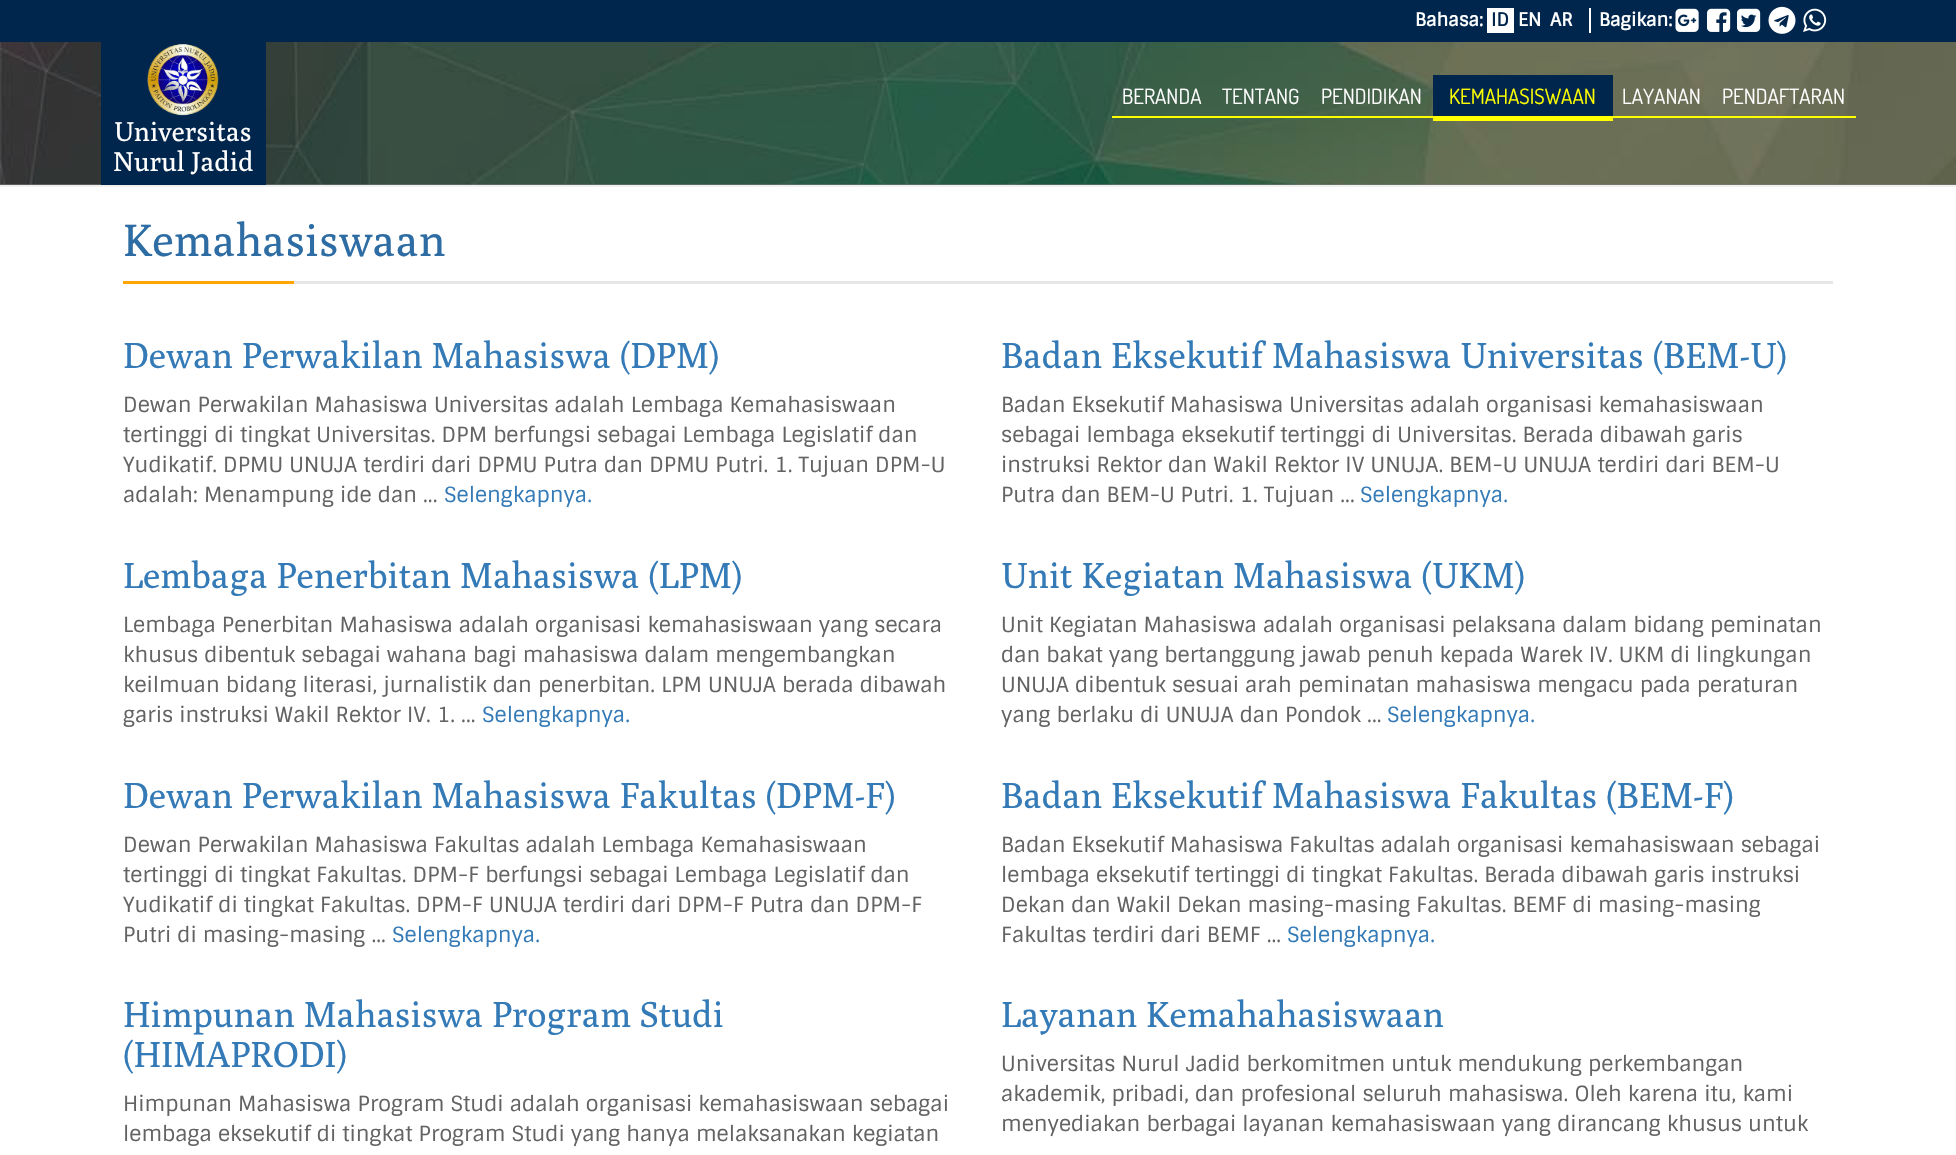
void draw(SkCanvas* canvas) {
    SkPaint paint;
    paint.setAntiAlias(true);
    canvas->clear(0xFFFFFFFF);
    canvas->drawImageRect(SkImages::DeferredFromEncodedData(SkData::MakeFromFileName("img1.png")), SkRect::MakeXYWH(0, 42, 1956, 143), SkSamplingOptions());
    paint.setColor(0xFF00264D);
    canvas->drawRect(SkRect::MakeXYWH(0, 0, 1956, 42), paint);
    SkFont font1(fontMgr->matchFamilyStyle("Sintony", SkFontStyle::Bold()), 18);
    font1.setSubpixel(true);
    paint.setColor(0xFFFFFFFF);
    canvas->drawString("Bahasa:", 1415, 26, font1, paint);
    canvas->drawRect(SkRect::MakeXYWH(1487, 8, 27, 25), paint);
    paint.setColor(0xFF00264D);
    canvas->drawString("ID", 1491, 26, font1, paint);
    paint.setColor(0xFFFFFFFF);
    canvas->drawString("EN", 1518, 26, font1, paint);
    canvas->drawString("AR", 1550, 26, font1, paint);
    canvas->drawRect(SkRect::MakeXYWH(1589, 8, 2, 25), paint);
    canvas->drawString("Bagikan:", 1599, 26, font1, paint);
    canvas->drawImageRect(SkImages::DeferredFromEncodedData(SkData::MakeFromFileName("img2.png")), SkRect::MakeXYWH(1675, 8, 24, 24), SkSamplingOptions());
    canvas->drawImageRect(SkImages::DeferredFromEncodedData(SkData::MakeFromFileName("img3.png")), SkRect::MakeXYWH(1707, 8, 24, 24), SkSamplingOptions());
    canvas->drawImageRect(SkImages::DeferredFromEncodedData(SkData::MakeFromFileName("img4.png")), SkRect::MakeXYWH(1737, 8, 24, 24), SkSamplingOptions());
    canvas->drawImageRect(SkImages::DeferredFromEncodedData(SkData::MakeFromFileName("img5.png")), SkRect::MakeXYWH(1768, 6, 28, 28), SkSamplingOptions());
    canvas->drawImageRect(SkImages::DeferredFromEncodedData(SkData::MakeFromFileName("img6.png")), SkRect::MakeXYWH(1803, 8, 24, 24), SkSamplingOptions());
    paint.setColor(0x80000000);
    canvas->drawRect(SkRect::MakeXYWH(0, 42, 1956, 143), paint);
    SkFont font2(fontMgr->matchFamilyStyle("Dosis", SkFontStyle::Normal()), 21);
    font2.setSubpixel(true);
    paint.setColor(0xFFFFFFFF);
    canvas->drawString("BERANDA", 1122, 104, font2, paint);
    canvas->drawString("TENTANG", 1222, 104, font2, paint);
    canvas->drawString("PENDIDIKAN", 1321, 104, font2, paint);
    paint.setColor(0xFFFFFF00);
    canvas->drawRect(SkRect::MakeXYWH(1112, 116, 321, 2), paint);
    paint.setColor(0xFF00264D);
    canvas->drawRect(SkRect::MakeXYWH(1433, 75, 180, 41), paint);
    paint.setColor(0xFFFFFF00);
    canvas->drawString("KEMAHASISWAAN", 1449, 104, font2, paint);
    canvas->drawRect(SkRect::MakeXYWH(1433, 116, 180, 5), paint);
    paint.setColor(0xFFFFFFFF);
    canvas->drawString("LAYANAN", 1622, 104, font2, paint);
    canvas->drawString("PENDAFTARAN", 1722, 104, font2, paint);
    paint.setColor(0xFFFFFF00);
    canvas->drawRect(SkRect::MakeXYWH(1613, 116, 243, 2), paint);
    paint.setColor(0xFF00264D);
    canvas->drawRect(SkRect::MakeXYWH(101, 42, 165, 143), paint);
    canvas->drawImageRect(SkImages::DeferredFromEncodedData(SkData::MakeFromFileName("img7.png")), SkRect::MakeXYWH(147, 44, 72, 72), SkSamplingOptions());
    SkFont font3(fontMgr->matchFamilyStyle("Poly", SkFontStyle::Normal()), 27);
    font3.setSubpixel(true);
    paint.setColor(0xFFFFFFFF);
    canvas->drawString("Universitas", 114, 141, font3, paint);
    canvas->drawString("Nurul Jadid", 113, 171, font3, paint);
    paint.setColor(0xFFF0F0F0);
    canvas->drawRect(SkRect::MakeXYWH(0, 185, 1956, 2), paint);
    SkFont font4(fontMgr->matchFamilyStyle("Poly", SkFontStyle::Normal()), 45);
    font4.setSubpixel(true);
    paint.setColor(0xFF2E6DA4);
    canvas->drawString("Kemahasiswaan", 123, 256, font4, paint);
    paint.setColor(0xFFFFA500);
    canvas->drawRect(SkRect::MakeXYWH(123, 281, 171, 3), paint);
    paint.setColor(0xFFE6E6E6);
    canvas->drawRect(SkRect::MakeXYWH(294, 281, 1539, 3), paint);
    SkFont font5(fontMgr->matchFamilyStyle("Poly", SkFontStyle::Normal()), 36);
    font5.setSubpixel(true);
    paint.setColor(0xFF337AB7);
    canvas->drawString("Dewan Perwakilan Mahasiswa (DPM)", 123, 368, font5, paint);
    SkFont font6(fontMgr->matchFamilyStyle("Sintony", SkFontStyle::Normal()), 21);
    font6.setSubpixel(true);
    paint.setColor(0xFF636363);
    canvas->drawString("Dewan Perwakilan Mahasiswa Universitas adalah Lembaga Kemahasiswaan", 123, 412, font6, paint);
    canvas->drawString("tertinggi di tingkat Universitas. DPM berfungsi sebagai Lembaga Legislatif dan", 123, 442, font6, paint);
    canvas->drawString("Yudikatif. DPMU UNUJA terdiri dari DPMU Putra dan DPMU Putri. 1. Tujuan DPM-U", 123, 472, font6, paint);
    canvas->drawString("adalah: Menampung ide dan ...", 123, 502, font6, paint);
    paint.setColor(0xFF337AB7);
    canvas->drawString("Selengkapnya.", 444, 502, font6, paint);
    canvas->drawString("Badan Eksekutif Mahasiswa Universitas (BEM-U)", 1001, 368, font5, paint);
    paint.setColor(0xFF636363);
    canvas->drawString("Badan Eksekutif Mahasiswa Universitas adalah organisasi kemahasiswaan", 1001, 412, font6, paint);
    canvas->drawString("sebagai lembaga eksekutif tertinggi di Universitas. Berada dibawah garis", 1001, 442, font6, paint);
    canvas->drawString("instruksi Rektor dan Wakil Rektor IV UNUJA. BEM-U UNUJA terdiri dari BEM-U", 1001, 472, font6, paint);
    canvas->drawString("Putra dan BEM-U Putri. 1. Tujuan ...", 1001, 502, font6, paint);
    paint.setColor(0xFF337AB7);
    canvas->drawString("Selengkapnya.", 1360, 502, font6, paint);
    canvas->drawString("Lembaga Penerbitan Mahasiswa (LPM)", 123, 588, font5, paint);
    paint.setColor(0xFF636363);
    canvas->drawString("Lembaga Penerbitan Mahasiswa adalah organisasi kemahasiswaan yang secara", 123, 632, font6, paint);
    canvas->drawString("khusus dibentuk sebagai wahana bagi mahasiswa dalam mengembangkan", 123, 662, font6, paint);
    canvas->drawString("keilmuan bidang literasi, jurnalistik dan penerbitan. LPM UNUJA berada dibawah", 123, 692, font6, paint);
    canvas->drawString("garis instruksi Wakil Rektor IV. 1. ...", 123, 722, font6, paint);
    paint.setColor(0xFF337AB7);
    canvas->drawString("Selengkapnya.", 482, 722, font6, paint);
    canvas->drawString("Unit Kegiatan Mahasiswa (UKM)", 1001, 588, font5, paint);
    paint.setColor(0xFF636363);
    canvas->drawString("Unit Kegiatan Mahasiswa adalah organisasi pelaksana dalam bidang peminatan", 1001, 632, font6, paint);
    canvas->drawString("dan bakat yang bertanggung jawab penuh kepada Warek IV. UKM di lingkungan", 1001, 662, font6, paint);
    canvas->drawString("UNUJA dibentuk sesuai arah peminatan mahasiswa mengacu pada peraturan", 1001, 692, font6, paint);
    canvas->drawString("yang berlaku di UNUJA dan Pondok ...", 1001, 722, font6, paint);
    paint.setColor(0xFF337AB7);
    canvas->drawString("Selengkapnya.", 1387, 722, font6, paint);
    canvas->drawString("Dewan Perwakilan Mahasiswa Fakultas (DPM-F)", 123, 808, font5, paint);
    paint.setColor(0xFF636363);
    canvas->drawString("Dewan Perwakilan Mahasiswa Fakultas adalah Lembaga Kemahasiswaan", 123, 852, font6, paint);
    canvas->drawString("tertinggi di tingkat Fakultas. DPM-F berfungsi sebagai Lembaga Legislatif dan", 123, 882, font6, paint);
    canvas->drawString("Yudikatif di tingkat Fakultas. DPM-F UNUJA terdiri dari DPM-F Putra dan DPM-F", 123, 912, font6, paint);
    canvas->drawString("Putri di masing-masing ...", 123, 942, font6, paint);
    paint.setColor(0xFF337AB7);
    canvas->drawString("Selengkapnya.", 392, 942, font6, paint);
    canvas->drawString("Badan Eksekutif Mahasiswa Fakultas (BEM-F)", 1001, 808, font5, paint);
    paint.setColor(0xFF636363);
    canvas->drawString("Badan Eksekutif Mahasiswa Fakultas adalah organisasi kemahasiswaan sebagai", 1001, 852, font6, paint);
    canvas->drawString("lembaga eksekutif tertinggi di tingkat Fakultas. Berada dibawah garis instruksi", 1001, 882, font6, paint);
    canvas->drawString("Dekan dan Wakil Dekan masing-masing Fakultas. BEMF di masing-masing", 1001, 912, font6, paint);
    canvas->drawString("Fakultas terdiri dari BEMF ...", 1001, 942, font6, paint);
    paint.setColor(0xFF337AB7);
    canvas->drawString("Selengkapnya.", 1287, 942, font6, paint);
    canvas->drawString("Himpunan Mahasiswa Program Studi", 123, 1027, font5, paint);
    canvas->drawString("(HIMAPRODI)", 123, 1067, font5, paint);
    paint.setColor(0xFF636363);
    canvas->drawString("Himpunan Mahasiswa Program Studi adalah organisasi kemahasiswaan sebagai", 123, 1111, font6, paint);
    canvas->drawString("lembaga eksekutif di tingkat Program Studi yang hanya melaksanakan kegiatan", 123, 1141, font6, paint);
    paint.setColor(0xFF337AB7);
    canvas->drawString("Layanan Kemahahasiswaan", 1001, 1027, font5, paint);
    paint.setColor(0xFF636363);
    canvas->drawString("Universitas Nurul Jadid berkomitmen untuk mendukung perkembangan", 1001, 1071, font6, paint);
    canvas->drawString("akademik, pribadi, dan profesional seluruh mahasiswa. Oleh karena itu, kami", 1001, 1101, font6, paint);
    canvas->drawString("menyediakan berbagai layanan kemahasiswaan yang dirancang khusus untuk", 1001, 1131, font6, paint);
}
